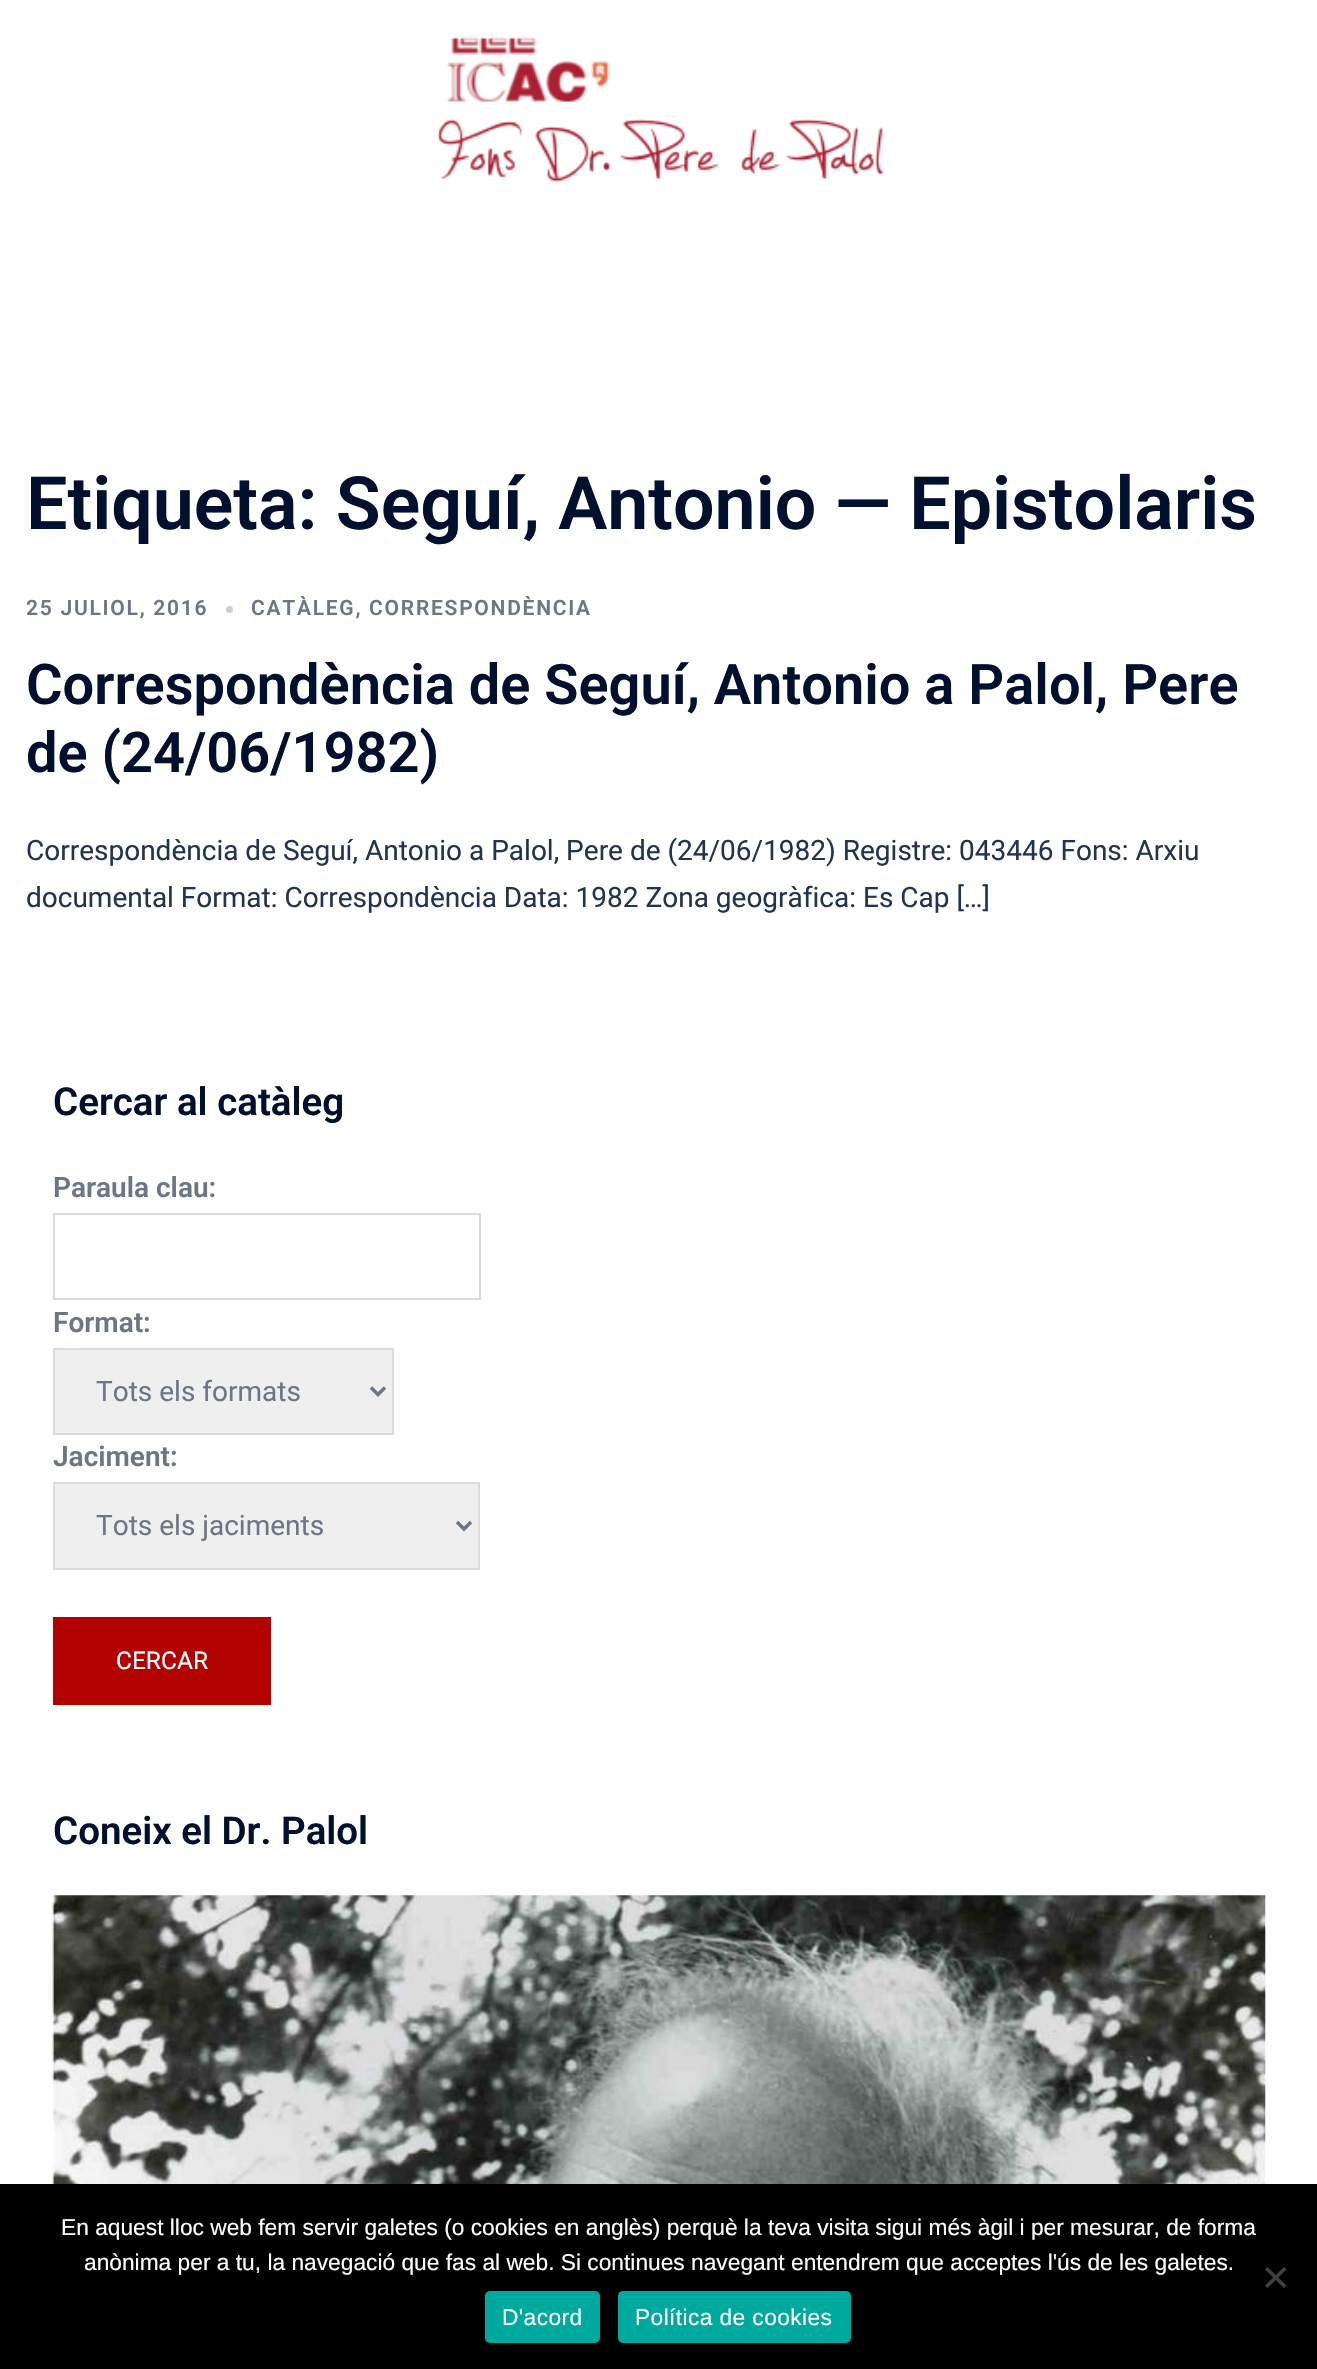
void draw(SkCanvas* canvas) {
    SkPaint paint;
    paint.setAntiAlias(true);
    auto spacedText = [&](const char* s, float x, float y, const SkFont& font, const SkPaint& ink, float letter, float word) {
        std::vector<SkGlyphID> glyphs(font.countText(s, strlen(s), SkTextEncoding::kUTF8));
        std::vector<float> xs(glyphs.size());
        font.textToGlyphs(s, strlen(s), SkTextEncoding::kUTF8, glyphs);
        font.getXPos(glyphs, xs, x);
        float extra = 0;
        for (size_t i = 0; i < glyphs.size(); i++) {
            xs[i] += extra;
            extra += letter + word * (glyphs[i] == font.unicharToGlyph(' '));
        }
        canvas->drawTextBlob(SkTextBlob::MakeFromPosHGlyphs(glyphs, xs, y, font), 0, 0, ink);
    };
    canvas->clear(0xFFFFFFFF);
    canvas->drawImageRect(SkImages::DeferredFromEncodedData(SkData::MakeFromFileName("img1.png")), SkRect::MakeXYWH(437, 36, 448, 147), SkSamplingOptions());
    SkFont font1(fontMgr->matchFamilyStyle("Roboto", SkFontStyle(600, SkFontStyle::kNormal_Width, SkFontStyle::kUpright_Slant)), 73.5f);
    font1.setSubpixel(true);
    paint.setColor(0xFF00102E);
    canvas->drawString("Etiqueta: Seguí, Antonio — Epistolaris", 26, 529, font1, paint);
    SkFont font2(fontMgr->matchFamilyStyle("Roboto", SkFontStyle(600, SkFontStyle::kNormal_Width, SkFontStyle::kUpright_Slant)), 21);
    font2.setSubpixel(true);
    paint.setColor(0xFF6D7685);
    spacedText("25 JULIOL, 2016", 26, 615, font2, paint, 1.75f, 0);
    paint.setColor(0xFFCCCFD5);
    canvas->drawCircle(229.5f, 609.5f, 3.5f, paint);
    paint.setColor(0xFF6D7685);
    spacedText("CATÀLEG, CORRESPONDÈNCIA", 251, 615, font2, paint, 1.75f, 0);
    SkFont font3(fontMgr->matchFamilyStyle("Roboto", SkFontStyle(600, SkFontStyle::kNormal_Width, SkFontStyle::kUpright_Slant)), 56);
    font3.setSubpixel(true);
    paint.setColor(0xFF00102E);
    canvas->drawString("Correspondència de Seguí, Antonio a Palol, Pere", 26, 704, font3, paint);
    canvas->drawString("de (24/06/1982)", 26, 772, font3, paint);
    SkFont font4(fontMgr->matchFamilyStyle("Roboto", SkFontStyle::Normal()), 28);
    font4.setSubpixel(true);
    paint.setColor(0xFF233452);
    canvas->drawString("Correspondència de Seguí, Antonio a Palol, Pere de (24/06/1982) Registre: 043446 Fons: Arxiu", 26, 860, font4, paint);
    canvas->drawString("documental Format: Correspondència Data: 1982 Zona geogràfica: Es Cap […]", 26, 907, font4, paint);
    SkFont font5(fontMgr->matchFamilyStyle("Roboto", SkFontStyle(600, SkFontStyle::kNormal_Width, SkFontStyle::kUpright_Slant)), 38.5f);
    font5.setSubpixel(true);
    paint.setColor(0xFF00102E);
    canvas->drawString("Cercar al catàleg", 53, 1115, font5, paint);
    SkFont font6(fontMgr->matchFamilyStyle("Roboto", SkFontStyle(600, SkFontStyle::kNormal_Width, SkFontStyle::kUpright_Slant)), 28);
    font6.setSubpixel(true);
    paint.setColor(0xFF6D7685);
    canvas->drawString("Paraula clau:", 53, 1197, font6, paint);
    paint.setStyle(SkPaint::kStroke_Style);
    paint.setStrokeWidth(2);
    paint.setColor(0xFFDBDBDB);
    canvas->drawRect(SkRect::MakeXYWH(54, 1214, 426, 85), paint);
    paint.setStyle(SkPaint::kFill_Style);
    paint.setColor(0xFF6D7685);
    canvas->drawString("Format:", 53, 1332, font6, paint);
    paint.setColor(0xFFEFEFEF);
    canvas->drawRect(SkRect::MakeXYWH(54, 1349, 339, 85), paint);
    paint.setStyle(SkPaint::kStroke_Style);
    paint.setColor(0xFFDBDBDB);
    canvas->drawRect(SkRect::MakeXYWH(54, 1349, 339, 85), paint);
    paint.setStrokeWidth(3.5f);
    paint.setColor(0xFF6D7685);
    canvas->drawPath(SkPathBuilder().moveTo(371, 1387.5f).lineTo(378, 1394.5f).lineTo(385, 1387.5f).detach(), paint);
    paint.setStyle(SkPaint::kFill_Style);
    canvas->drawString("Tots els formats", 96, 1401, font4, paint);
    canvas->drawString("Jaciment:", 53, 1466, font6, paint);
    paint.setColor(0xFFEFEFEF);
    canvas->drawRect(SkRect::MakeXYWH(54, 1483, 425, 86), paint);
    paint.setStyle(SkPaint::kStroke_Style);
    paint.setStrokeWidth(2);
    paint.setColor(0xFFDBDBDB);
    canvas->drawRect(SkRect::MakeXYWH(54, 1483, 425, 86), paint);
    paint.setStrokeWidth(3.5f);
    paint.setColor(0xFF6D7685);
    canvas->drawPath(SkPathBuilder().moveTo(457, 1522).lineTo(464, 1529).lineTo(471, 1522).detach(), paint);
    paint.setStyle(SkPaint::kFill_Style);
    canvas->drawString("Tots els jaciments", 96, 1535, font4, paint);
    paint.setColor(0xFFB20202);
    canvas->drawRect(SkRect::MakeXYWH(53, 1617, 218, 88), paint);
    SkFont font7(fontMgr->matchFamilyStyle("Roboto", SkFontStyle::Normal()), 24.5f);
    font7.setSubpixel(true);
    paint.setColor(0xFFFFFFFF);
    canvas->drawString("CERCAR", 116, 1669, font7, paint);
    paint.setColor(0xFF00102E);
    canvas->drawString("Coneix el Dr. Palol", 53, 1844, font5, paint);
    canvas->drawImageRect(SkImages::DeferredFromEncodedData(SkData::MakeFromFileName("img2.png")), SkRect::MakeXYWH(52, 1895, 1214, 289), SkSamplingOptions());
    paint.setColor(0xFF000000);
    canvas->drawRect(SkRect::MakeXYWH(0, 2184, 1317, 185), paint);
    SkFont font8(fontMgr->matchFamilyStyle("Liberation Sans", SkFontStyle::Normal()), 22.75f);
    font8.setSubpixel(true);
    paint.setColor(0xFFFFFFFF);
    canvas->drawString("En aquest lloc web fem servir galetes (o cookies en anglès) perquè la teva visita sigui més àgil i per mesurar, de forma", 61, 2235, font8, paint);
    canvas->drawString("anònima per a tu, la navegació que fas al web. Si continues navegant entendrem que acceptes l'ús de les galetes.", 84, 2270, font8, paint);
    paint.setColor(0xFF404040);
    canvas->drawPath(SkPathBuilder().moveTo(1284, 2267).lineTo(1286.5f, 2269.5f).lineTo(1267.5f, 2288).lineTo(1265, 2285.5f).close().detach(), paint);
    canvas->drawPath(SkPathBuilder().moveTo(1265, 2269.5f).lineTo(1267.5f, 2267).lineTo(1286.5f, 2285.5f).lineTo(1284, 2288).close().detach(), paint);
    paint.setColor(0xFF00A99D);
    canvas->drawRoundRect(SkRect::MakeXYWH(485, 2291, 115, 52), 5, 5, paint);
    paint.setColor(0xFFFFFFFF);
    spacedText("D'acord", 502, 2325, font8, paint, 0.4f, 0);
    paint.setColor(0xFF00A99D);
    canvas->drawRoundRect(SkRect::MakeXYWH(618, 2291, 233, 52), 5, 5, paint);
    paint.setColor(0xFFFFFFFF);
    spacedText("Política de cookies", 635, 2325, font8, paint, 0.4f, 0);
}
